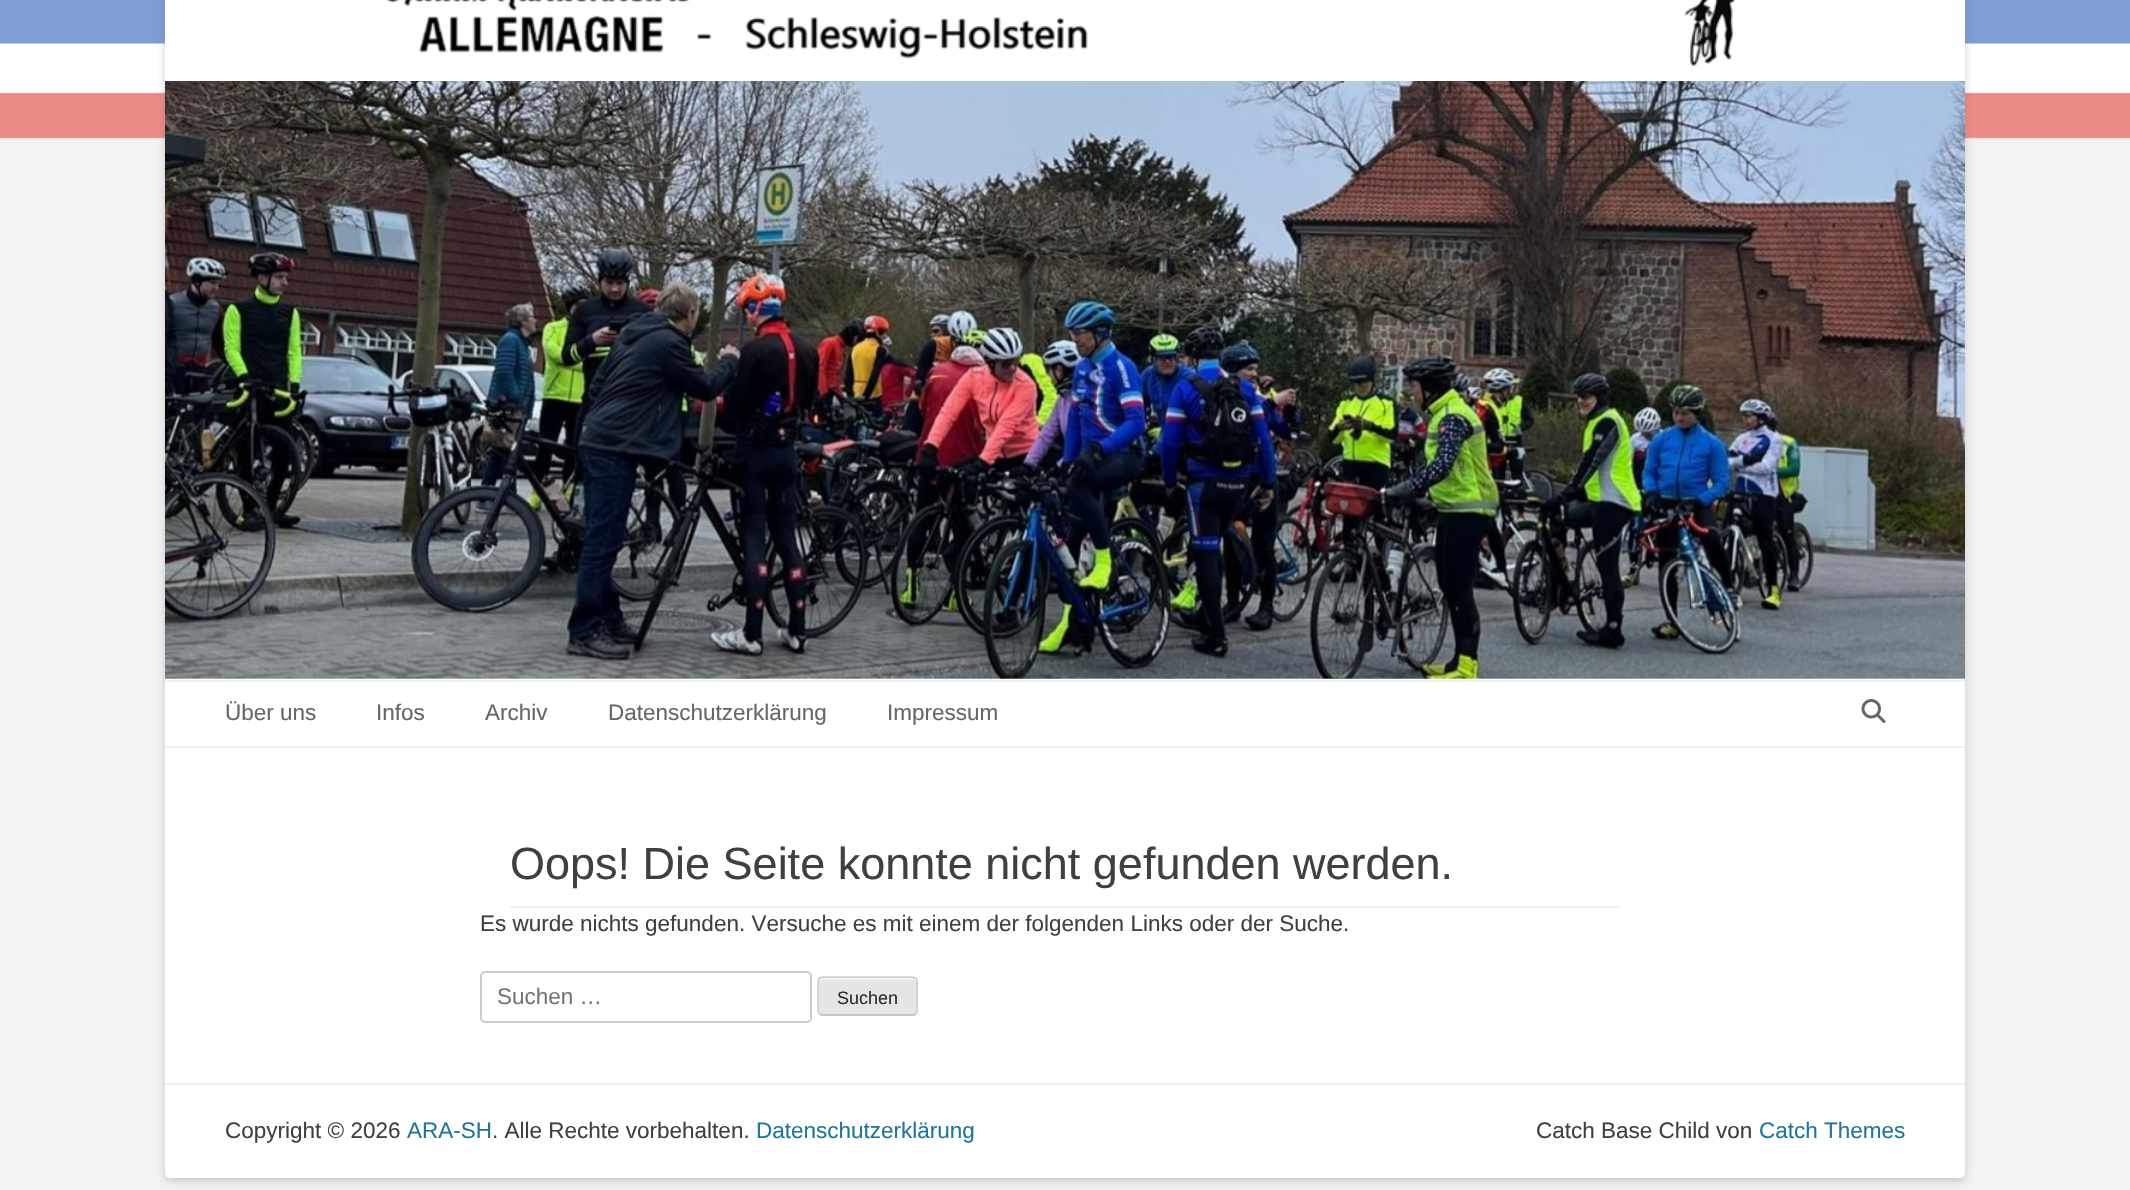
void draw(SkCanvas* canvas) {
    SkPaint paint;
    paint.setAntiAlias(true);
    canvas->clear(0xFFF2F2F2);
    canvas->drawImageRect(SkImages::DeferredFromEncodedData(SkData::MakeFromFileName("img1.png")), SkRect::MakeXYWH(0, 0, 2130, 139), SkSamplingOptions());
    paint.setColor(0x4D646464);
    paint.setMaskFilter(SkMaskFilter::MakeBlur(kNormal_SkBlurStyle, 4.5f));
    canvas->drawRoundRect(SkRect::MakeXYWH(165, -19, 1800, 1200), 5, 5, paint);
    paint.setMaskFilter(nullptr);
    paint.setColor(0xFFFFFFFF);
    canvas->drawRoundRect(SkRect::MakeXYWH(165, -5, 1800, 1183), 5, 5, paint);
    canvas->drawImageRect(SkImages::DeferredFromEncodedData(SkData::MakeFromFileName("img2.png")), SkRect::MakeXYWH(386, 0, 1350, 66), SkSamplingOptions());
    canvas->drawImageRect(SkImages::DeferredFromEncodedData(SkData::MakeFromFileName("img3.png")), SkRect::MakeXYWH(165, 81, 1800, 598), SkSamplingOptions());
    paint.setColor(0xFFEEEEEE);
    canvas->drawRect(SkRect::MakeXYWH(165, 680, 1800, 2), paint);
    canvas->drawRect(SkRect::MakeXYWH(165, 746, 1800, 2), paint);
    SkFont font1(fontMgr->matchFamilyStyle("Liberation Sans", SkFontStyle::Normal()), 22.5f);
    font1.setSubpixel(true);
    paint.setColor(0xFF666666);
    canvas->drawString("Über uns", 225, 720, font1, paint);
    canvas->drawString("Infos", 376, 720, font1, paint);
    canvas->drawString("Archiv", 485, 720, font1, paint);
    canvas->drawString("Datenschutzerklärung", 608, 720, font1, paint);
    canvas->drawString("Impressum", 887, 720, font1, paint);
    canvas->drawImageRect(SkImages::DeferredFromEncodedData(SkData::MakeFromFileName("img4.png")), SkRect::MakeXYWH(1861, 699, 25, 24), SkSamplingOptions());
    paint.setColor(0xFFEEEEEE);
    canvas->drawRect(SkRect::MakeXYWH(510, 906, 1110, 2), paint);
    SkFont font2(fontMgr->matchFamilyStyle("Liberation Sans", SkFontStyle::Normal()), 45);
    font2.setSubpixel(true);
    paint.setColor(0xFF404040);
    canvas->drawString("Oops! Die Seite konnte nicht gefunden werden.", 510, 879, font2, paint);
    canvas->drawString("Es wurde nichts gefunden. Versuche es mit einem der folgenden Links oder der Suche.", 480, 931, font1, paint);
    paint.setStyle(SkPaint::kStroke_Style);
    paint.setStrokeWidth(2);
    paint.setColor(0xFFCCCCCC);
    canvas->drawRoundRect(SkRect::MakeXYWH(481, 972, 330, 50), 4, 4, paint);
    paint.setStyle(SkPaint::kFill_Style);
    paint.setColor(0xFF757575);
    canvas->drawString("Suchen …", 497, 1004, font1, paint);
    paint.setColor(0xFFE6E6E6);
    canvas->drawRoundRect(SkRect::MakeXYWH(818, 977, 100, 39), 5, 5, paint);
    paint.setColor(0xFFF3F3F3);
    canvas->drawPath(SkPathBuilder().moveTo(822, 980).lineTo(899, 980).cubicTo(918, 980, 916, 976, 916, 992).lineTo(916, 1013).cubicTo(917, 1013, 917, 1012, 917, 1011).lineTo(917, 981).cubicTo(917, 979, 916, 978, 914, 978).lineTo(822, 978).cubicTo(820, 978, 819, 979, 819, 981).lineTo(819, 982).cubicTo(819, 981, 820, 980, 822, 980).close().detach(), paint);
    paint.setStyle(SkPaint::kStroke_Style);
    paint.setStrokeWidth(1.5f);
    paint.setColor(0xFFBBBBBB);
    canvas->drawPath(SkPathBuilder().moveTo(916, 1013.5f).cubicTo(915.5f, 1014.5f, 914.5f, 1015, 913.5f, 1015).lineTo(822, 1015).cubicTo(821, 1015, 820, 1014.5f, 819.5f, 1013.5f).detach(), paint);
    paint.setColor(0xFFCCCCCC);
    canvas->drawPath(SkPathBuilder().moveTo(819.5f, 1013.5f).cubicTo(817.5f, 1012, 818, 1008, 818, 1006).lineTo(818, 996).cubicTo(818, 974, 814.5f, 977, 837, 977).lineTo(898, 977).cubicTo(921, 977, 917, 974, 917, 996).lineTo(917, 1006).cubicTo(917, 1008, 918, 1012, 916, 1013.5f).detach(), paint);
    SkFont font3(fontMgr->matchFamilyStyle("Liberation Sans", SkFontStyle::Normal()), 18);
    font3.setSubpixel(true);
    paint.setStyle(SkPaint::kFill_Style);
    paint.setColor(0xFF2E2E2E);
    canvas->drawString("Suchen", 837, 1004, font3, paint);
    paint.setColor(0xFFEEEEEE);
    canvas->drawRect(SkRect::MakeXYWH(165, 1083, 1800, 2), paint);
    paint.setColor(0xFF404040);
    canvas->drawString("Copyright © 2026", 225, 1138, font1, paint);
    paint.setColor(0xFF21759B);
    canvas->drawString("ARA-SH", 407, 1138, font1, paint);
    paint.setColor(0xFF404040);
    canvas->drawString(". Alle Rechte vorbehalten.", 492, 1138, font1, paint);
    paint.setColor(0xFF21759B);
    canvas->drawString("Datenschutzerklärung", 756, 1138, font1, paint);
    paint.setColor(0xFF404040);
    canvas->drawString("Catch Base Child von", 1536, 1138, font1, paint);
    paint.setColor(0xFF21759B);
    canvas->drawString("Catch Themes", 1759, 1138, font1, paint);
}
